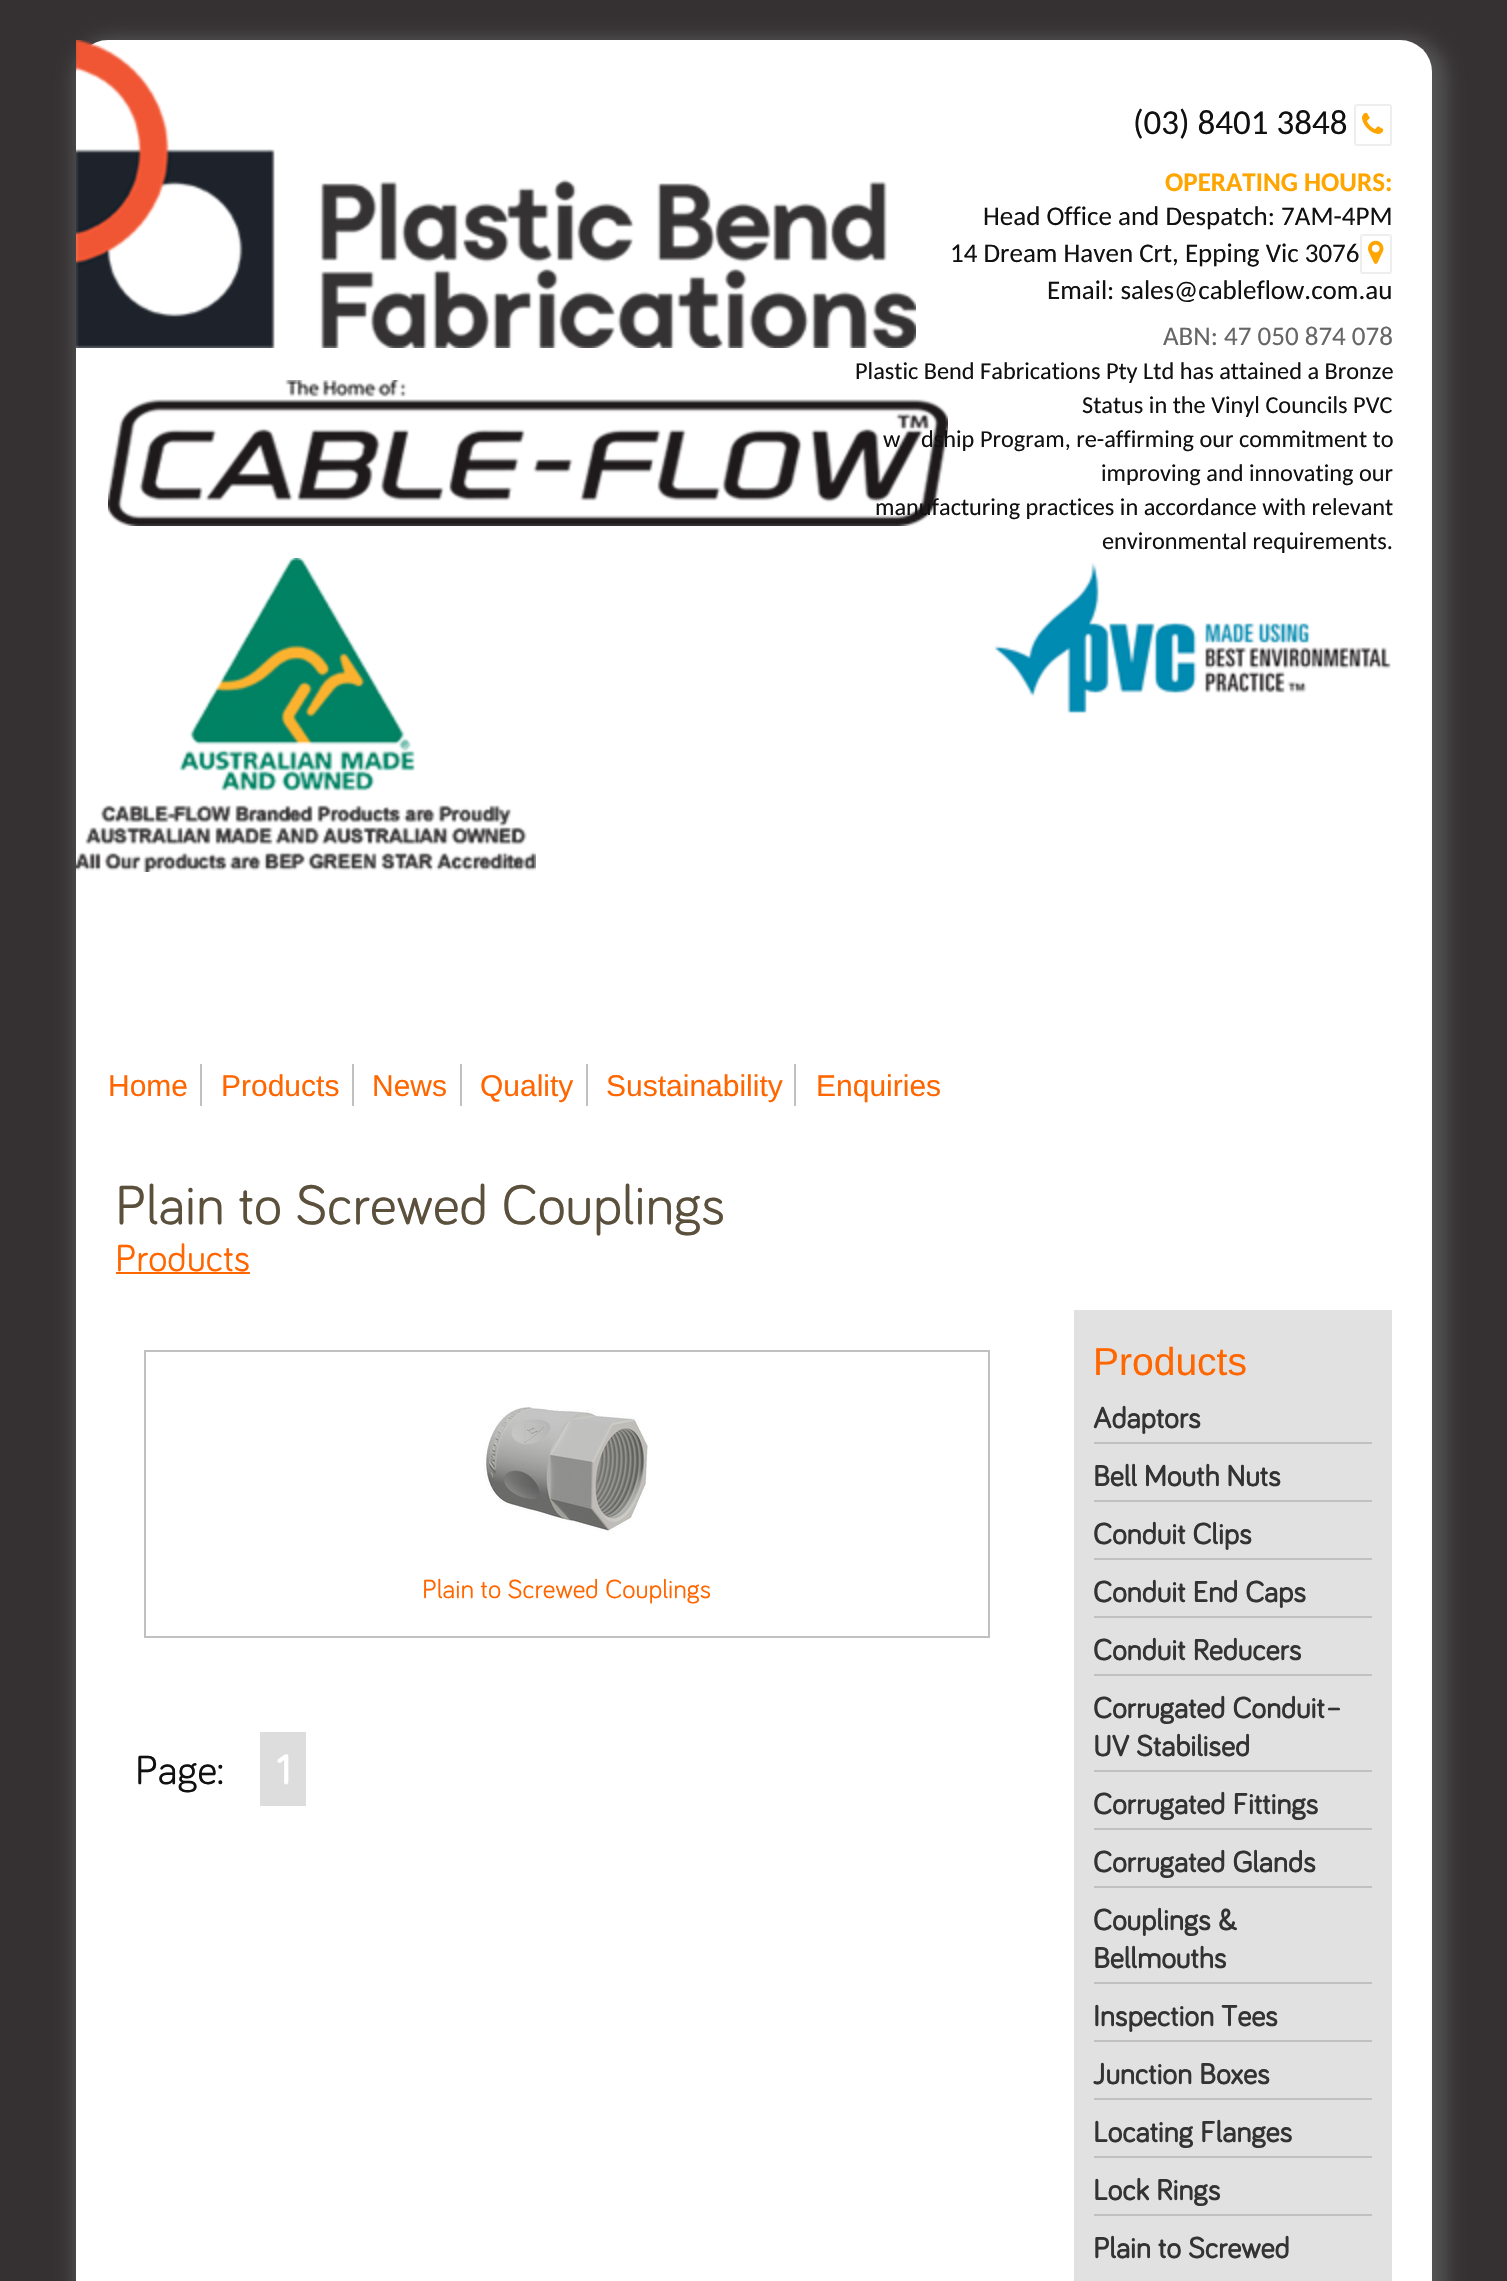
void draw(SkCanvas* canvas) {
    SkPaint paint;
    paint.setAntiAlias(true);
    canvas->clear(0xFF353132);
    paint.setColor(0xFF555555);
    paint.setMaskFilter(SkMaskFilter::MakeBlur(kNormal_SkBlurStyle, 9));
    canvas->drawRoundRect(SkRect::MakeXYWH(74, 38, 1372, 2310), 40, 40, paint);
    paint.setMaskFilter(nullptr);
    paint.setColor(0xFFFFFFFF);
    canvas->drawRoundRect(SkRect::MakeXYWH(76, 40, 1356, 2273), 32, 32, paint);
    canvas->drawImageRect(SkImages::DeferredFromEncodedData(SkData::MakeFromFileName("img1.png")), SkRect::MakeXYWH(76, 40, 840, 308), SkSamplingOptions());
    canvas->drawImageRect(SkImages::DeferredFromEncodedData(SkData::MakeFromFileName("img2.png")), SkRect::MakeXYWH(108, 380, 840, 146), SkSamplingOptions());
    canvas->drawImageRect(SkImages::DeferredFromEncodedData(SkData::MakeFromFileName("img3.png")), SkRect::MakeXYWH(76, 558, 460, 314), SkSamplingOptions());
    SkFont font1(fontMgr->matchFamilyStyle("Carlito", SkFontStyle::Normal()), 35);
    font1.setSubpixel(true);
    paint.setColor(0xFF111111);
    canvas->drawString("(03) 8401 3848", 1133, 134, font1, paint);
    paint.setStyle(SkPaint::kStroke_Style);
    paint.setStrokeWidth(2);
    paint.setColor(0xFFEEEEEE);
    canvas->drawRoundRect(SkRect::MakeXYWH(1355, 105, 36, 40), 2, 2, paint);
    canvas->drawImageRect(SkImages::DeferredFromEncodedData(SkData::MakeFromFileName("img4.png")), SkRect::MakeXYWH(1362, 112, 22, 22), SkSamplingOptions());
    SkFont font2(fontMgr->matchFamilyStyle("Carlito", SkFontStyle::Bold()), 27);
    font2.setSubpixel(true);
    paint.setStyle(SkPaint::kFill_Style);
    paint.setColor(0xFFFFA500);
    canvas->drawString("OPERATING HOURS:", 1165, 191, font2, paint);
    SkFont font3(fontMgr->matchFamilyStyle("Carlito", SkFontStyle::Normal()), 27);
    font3.setSubpixel(true);
    paint.setColor(0xFF111111);
    canvas->drawString("Head Office and Despatch: 7AM-4PM", 983, 225, font3, paint);
    canvas->drawString("14 Dream Haven Crt, Epping Vic 3076", 950, 262, font3, paint);
    paint.setStyle(SkPaint::kStroke_Style);
    paint.setColor(0xFFEEEEEE);
    canvas->drawRoundRect(SkRect::MakeXYWH(1361, 235, 30, 38), 2, 2, paint);
    canvas->drawImageRect(SkImages::DeferredFromEncodedData(SkData::MakeFromFileName("img5.png")), SkRect::MakeXYWH(1368, 240, 16, 24), SkSamplingOptions());
    paint.setStyle(SkPaint::kFill_Style);
    paint.setColor(0xFF111111);
    canvas->drawString("Email: sales@cableflow.com.au", 1047, 299, font3, paint);
    paint.setColor(0xFF666666);
    canvas->drawString("ABN: 47 050 874 078", 1163, 345, font3, paint);
    SkFont font4(fontMgr->matchFamilyStyle("Carlito", SkFontStyle::Normal()), 24.3f);
    font4.setSubpixel(true);
    paint.setColor(0xFF111111);
    canvas->drawString("Plastic Bend Fabrications Pty Ltd has attained a Bronze", 855, 379, font4, paint);
    canvas->drawString("Status in the Vinyl Councils PVC", 1082, 413, font4, paint);
    canvas->drawString("w", 883, 447, font4, paint);
    canvas->drawString("dship Program, re-affirming our commitment to", 921, 447, font4, paint);
    canvas->drawString("improving and innovating our", 1101, 481, font4, paint);
    canvas->drawString("manufacturing practices in accordance with relevant", 875, 515, font4, paint);
    canvas->drawString("environmental requirements.", 1102, 549, font4, paint);
    canvas->drawImageRect(SkImages::DeferredFromEncodedData(SkData::MakeFromFileName("img6.png")), SkRect::MakeXYWH(994, 562, 397, 152), SkSamplingOptions());
    paint.setColor(0xFFC0C0C0);
    canvas->drawRect(SkRect::MakeXYWH(200, 1064, 2, 42), paint);
    SkFont font5(fontMgr->matchFamilyStyle("Liberation Sans", SkFontStyle::Normal()), 30);
    font5.setSubpixel(true);
    paint.setColor(0xFFFF6600);
    canvas->drawString("Home", 108, 1096, font5, paint);
    paint.setColor(0xFFC0C0C0);
    canvas->drawRect(SkRect::MakeXYWH(352, 1064, 2, 42), paint);
    paint.setColor(0xFFFF6600);
    canvas->drawString("Products", 221, 1096, font5, paint);
    paint.setColor(0xFFC0C0C0);
    canvas->drawRect(SkRect::MakeXYWH(460, 1064, 2, 42), paint);
    paint.setColor(0xFFFF6600);
    canvas->drawString("News", 372, 1096, font5, paint);
    paint.setColor(0xFFC0C0C0);
    canvas->drawRect(SkRect::MakeXYWH(586, 1064, 2, 42), paint);
    paint.setColor(0xFFFF6600);
    canvas->drawString("Quality", 480, 1096, font5, paint);
    paint.setColor(0xFFC0C0C0);
    canvas->drawRect(SkRect::MakeXYWH(794, 1064, 2, 42), paint);
    paint.setColor(0xFFFF6600);
    canvas->drawString("Sustainability", 606, 1096, font5, paint);
    canvas->drawString("Enquiries", 816, 1096, font5, paint);
    SkFont font6(fontMgr->matchFamilyStyle("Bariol", SkFontStyle::Normal()), 57);
    font6.setSubpixel(true);
    paint.setColor(0xFF5B503C);
    canvas->drawString("Plain to Screwed Couplings", 115, 1224, font6, paint);
    SkFont font7(fontMgr->matchFamilyStyle("Bariol", SkFontStyle::Normal()), 39);
    font7.setSubpixel(true);
    paint.setColor(0xFFFF6600);
    canvas->drawString("Products", 115, 1271, font7, paint);
    canvas->drawRect(SkRect::MakeXYWH(116, 1272, 134, 2), paint);
    paint.setStyle(SkPaint::kStroke_Style);
    paint.setColor(0xFFC0C0C0);
    canvas->drawRect(SkRect::MakeXYWH(145, 1351, 844, 286), paint);
    canvas->drawImageRect(SkImages::DeferredFromEncodedData(SkData::MakeFromFileName("img7.png")), SkRect::MakeXYWH(483, 1407, 165, 128), SkSamplingOptions());
    SkFont font8(fontMgr->matchFamilyStyle("Bariol", SkFontStyle::Normal()), 27);
    font8.setSubpixel(true);
    paint.setStyle(SkPaint::kFill_Style);
    paint.setColor(0xFFFF6600);
    canvas->drawString("Plain to Screwed Couplings", 422, 1598, font8, paint);
    SkFont font9(fontMgr->matchFamilyStyle("Bariol", SkFontStyle::Normal()), 42);
    font9.setSubpixel(true);
    paint.setColor(0xFF111111);
    canvas->drawString("Page:", 135, 1784, font9, paint);
    paint.setColor(0xFFDDDDDD);
    canvas->drawRect(SkRect::MakeXYWH(260, 1732, 46, 74), paint);
    SkFont font10(fontMgr->matchFamilyStyle("Bariol", SkFontStyle::Bold()), 42);
    font10.setSubpixel(true);
    paint.setColor(0xFFFFFFFF);
    canvas->drawString("1", 276, 1784, font10, paint);
    paint.setColor(0xFFE1E1E1);
    canvas->drawRect(SkRect::MakeXYWH(1074, 1310, 318, 971), paint);
    SkFont font11(fontMgr->matchFamilyStyle("Liberation Sans", SkFontStyle::Normal()), 39);
    font11.setSubpixel(true);
    paint.setColor(0xFFFF6600);
    canvas->drawString("Products", 1093, 1375, font11, paint);
    paint.setColor(0xFFC0C0C0);
    canvas->drawRect(SkRect::MakeXYWH(1094, 1442, 278, 2), paint);
    SkFont font12(fontMgr->matchFamilyStyle("Bariol", SkFontStyle::Bold()), 30);
    font12.setSubpixel(true);
    paint.setColor(0xFF333333);
    canvas->drawString("Adaptors", 1093, 1428, font12, paint);
    paint.setColor(0xFFC0C0C0);
    canvas->drawRect(SkRect::MakeXYWH(1094, 1500, 278, 2), paint);
    paint.setColor(0xFF333333);
    canvas->drawString("Bell Mouth Nuts", 1093, 1486, font12, paint);
    paint.setColor(0xFFC0C0C0);
    canvas->drawRect(SkRect::MakeXYWH(1094, 1558, 278, 2), paint);
    paint.setColor(0xFF333333);
    canvas->drawString("Conduit Clips", 1093, 1544, font12, paint);
    paint.setColor(0xFFC0C0C0);
    canvas->drawRect(SkRect::MakeXYWH(1094, 1616, 278, 2), paint);
    paint.setColor(0xFF333333);
    canvas->drawString("Conduit End Caps", 1093, 1602, font12, paint);
    paint.setColor(0xFFC0C0C0);
    canvas->drawRect(SkRect::MakeXYWH(1094, 1674, 278, 2), paint);
    paint.setColor(0xFF333333);
    canvas->drawString("Conduit Reducers", 1093, 1660, font12, paint);
    paint.setColor(0xFFC0C0C0);
    canvas->drawRect(SkRect::MakeXYWH(1094, 1770, 278, 2), paint);
    paint.setColor(0xFF333333);
    canvas->drawString("Corrugated Conduit–", 1093, 1718, font12, paint);
    canvas->drawString("UV Stabilised", 1093, 1756, font12, paint);
    paint.setColor(0xFFC0C0C0);
    canvas->drawRect(SkRect::MakeXYWH(1094, 1828, 278, 2), paint);
    paint.setColor(0xFF333333);
    canvas->drawString("Corrugated Fittings", 1093, 1814, font12, paint);
    paint.setColor(0xFFC0C0C0);
    canvas->drawRect(SkRect::MakeXYWH(1094, 1886, 278, 2), paint);
    paint.setColor(0xFF333333);
    canvas->drawString("Corrugated Glands", 1093, 1872, font12, paint);
    paint.setColor(0xFFC0C0C0);
    canvas->drawRect(SkRect::MakeXYWH(1094, 1982, 278, 2), paint);
    paint.setColor(0xFF333333);
    canvas->drawString("Couplings &", 1093, 1930, font12, paint);
    canvas->drawString("Bellmouths", 1093, 1968, font12, paint);
    paint.setColor(0xFFC0C0C0);
    canvas->drawRect(SkRect::MakeXYWH(1094, 2040, 278, 2), paint);
    paint.setColor(0xFF333333);
    canvas->drawString("Inspection Tees", 1093, 2026, font12, paint);
    paint.setColor(0xFFC0C0C0);
    canvas->drawRect(SkRect::MakeXYWH(1094, 2098, 278, 2), paint);
    paint.setColor(0xFF333333);
    canvas->drawString("Junction Boxes", 1093, 2084, font12, paint);
    paint.setColor(0xFFC0C0C0);
    canvas->drawRect(SkRect::MakeXYWH(1094, 2156, 278, 2), paint);
    paint.setColor(0xFF333333);
    canvas->drawString("Locating Flanges", 1093, 2142, font12, paint);
    paint.setColor(0xFFC0C0C0);
    canvas->drawRect(SkRect::MakeXYWH(1094, 2214, 278, 2), paint);
    paint.setColor(0xFF333333);
    canvas->drawString("Lock Rings", 1093, 2200, font12, paint);
    canvas->drawString("Plain to Screwed", 1093, 2258, font12, paint);
}
